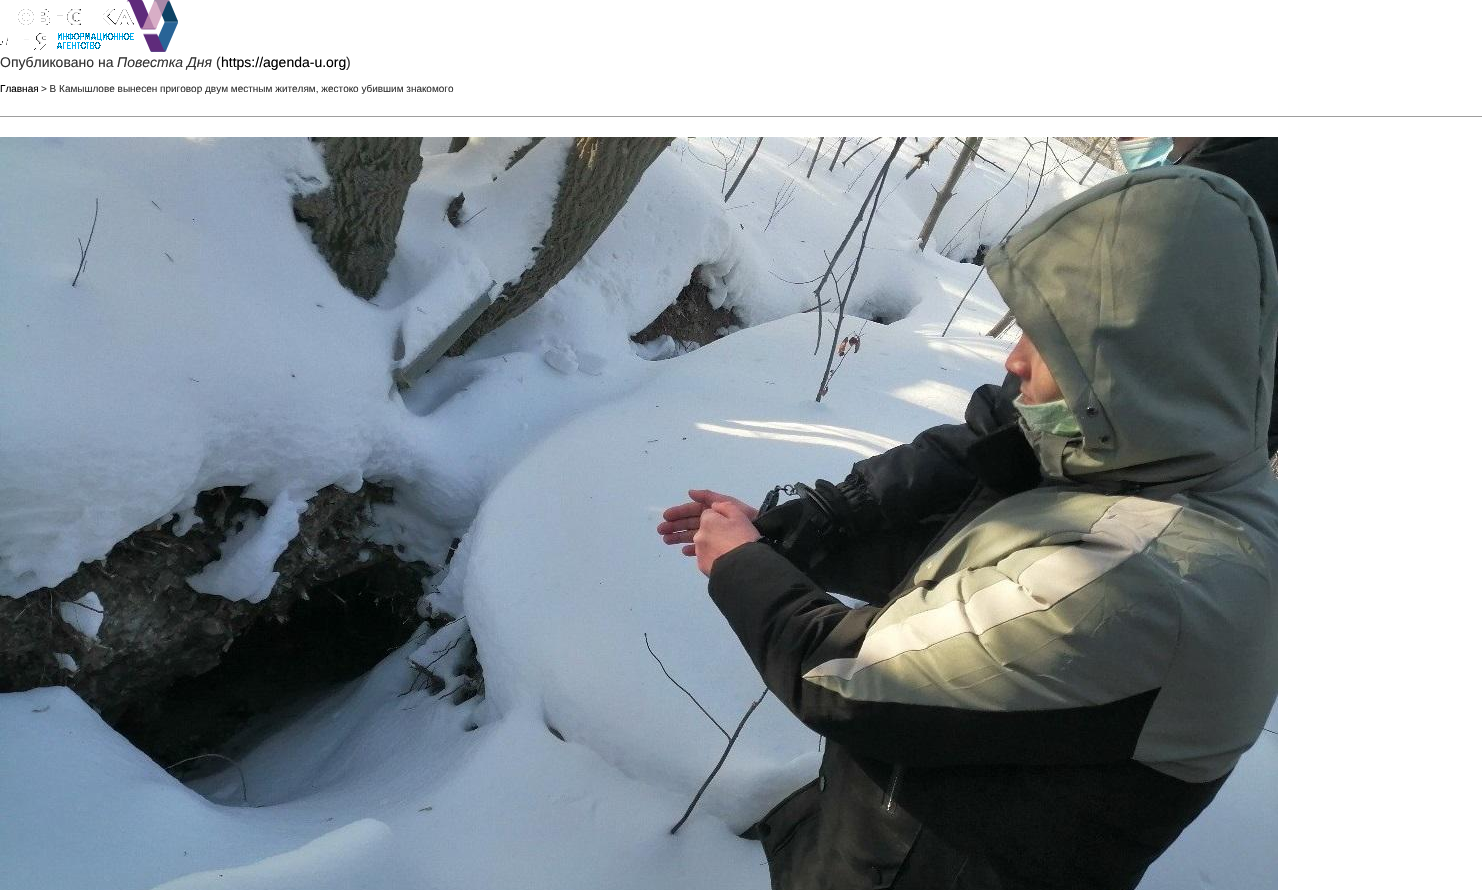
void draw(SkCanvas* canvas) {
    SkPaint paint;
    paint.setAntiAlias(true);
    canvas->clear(0xFFFFFFFF);
    canvas->drawImageRect(SkImages::DeferredFromEncodedData(SkData::MakeFromFileName("img1.png")), SkRect::MakeXYWH(0, 0, 178, 52), SkSamplingOptions());
    SkFont font1(fontMgr->matchFamilyStyle("Liberation Sans", SkFontStyle::Normal()), 14);
    font1.setSubpixel(true);
    paint.setColor(0xFF333333);
    canvas->drawString("Опубликовано на", 0, 67, font1, paint);
    SkFont font2(fontMgr->matchFamilyStyle("Liberation Sans", SkFontStyle::Italic()), 14);
    font2.setSubpixel(true);
    canvas->drawString("Повестка Дня", 117, 67, font2, paint);
    canvas->drawString("(", 216, 67, font1, paint);
    paint.setColor(0xFF000000);
    canvas->drawString("https://agenda-u.org", 221, 67, font1, paint);
    paint.setColor(0xFF333333);
    canvas->drawString(")", 346, 67, font1, paint);
    SkFont font3(fontMgr->matchFamilyStyle("Liberation Sans", SkFontStyle::Normal()), 10);
    font3.setSubpixel(true);
    paint.setColor(0xFF000000);
    canvas->drawString("Главная", 0, 92, font3, paint);
    paint.setColor(0xFF333333);
    canvas->drawString("> В Камышлове вынесен приговор двум местным жителям, жестоко убившим знакомого", 41, 92, font3, paint);
    paint.setColor(0xFF9E9E9E);
    canvas->drawRect(SkRect::MakeXYWH(0, 116, 1482, 1), paint);
    canvas->drawImageRect(SkImages::DeferredFromEncodedData(SkData::MakeFromFileName("img2.png")), SkRect::MakeXYWH(0, 137, 1278, 753), SkSamplingOptions());
}
